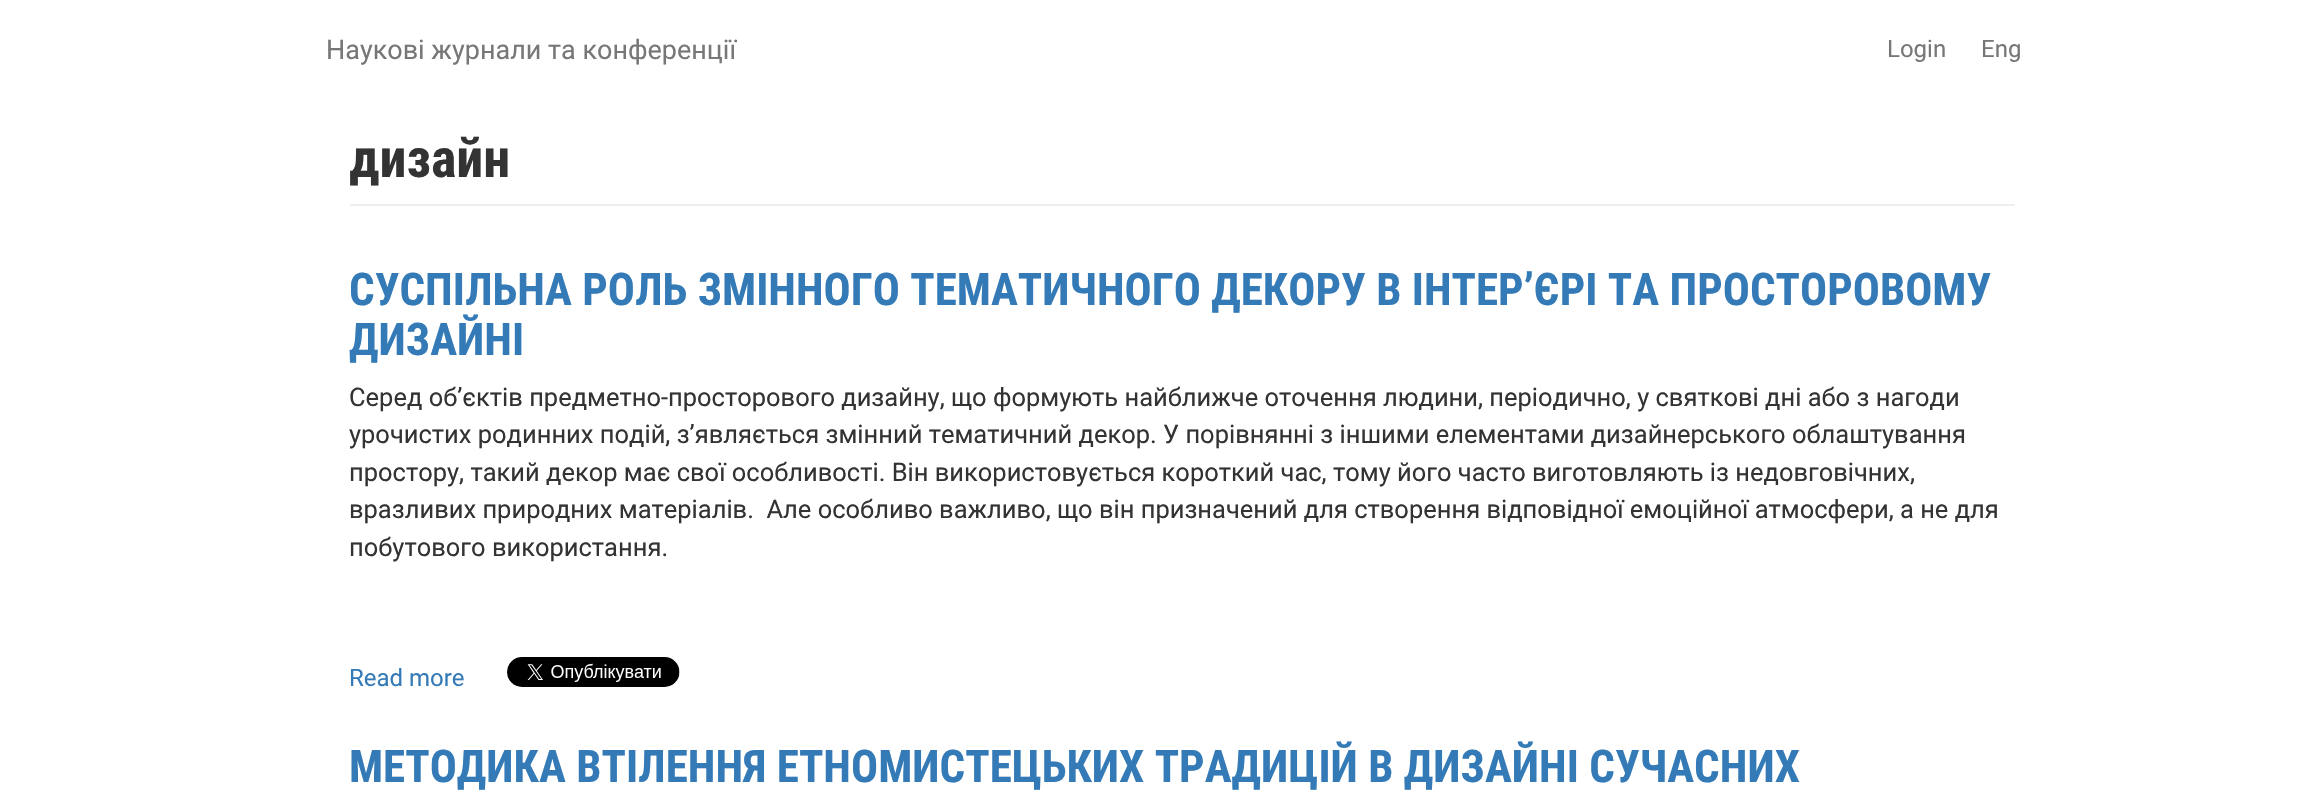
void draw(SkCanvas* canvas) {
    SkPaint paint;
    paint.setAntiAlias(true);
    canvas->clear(0xFFFFFFFF);
    SkFont font1(fontMgr->matchFamilyStyle("Roboto", SkFontStyle::Normal()), 27);
    font1.setSubpixel(true);
    paint.setColor(0xFF777777);
    canvas->drawString("Наукові журнали та конференції", 326, 59, font1, paint);
    SkFont font2(fontMgr->matchFamilyStyle("Roboto", SkFontStyle::Normal()), 24);
    font2.setSubpixel(true);
    canvas->drawString("Login", 1887, 57, font2, paint);
    canvas->drawString("Eng", 1981, 57, font2, paint);
    paint.setColor(0xFFEEEEEE);
    canvas->drawRect(SkRect::MakeXYWH(350, 204, 1665, 2), paint);
    SkFont font3(fontMgr->matchFamilyStyle("Roboto Condensed", SkFontStyle::Bold()), 54);
    font3.setSubpixel(true);
    paint.setColor(0xFF333333);
    canvas->drawString("дизайн", 349, 177, font3, paint);
    SkFont font4(fontMgr->matchFamilyStyle("Roboto Condensed", SkFontStyle::Bold()), 45);
    font4.setSubpixel(true);
    paint.setColor(0xFF337AB7);
    canvas->drawString("CУСПІЛЬНА РОЛЬ ЗМІННОГО ТЕМАТИЧНОГО ДЕКОРУ В ІНТЕР’ЄРІ ТА ПРОСТОРОВОМУ", 349, 305, font4, paint);
    canvas->drawString("ДИЗАЙНІ", 349, 355, font4, paint);
    SkFont font5(fontMgr->matchFamilyStyle("Roboto", SkFontStyle::Normal()), 25.5f);
    font5.setSubpixel(true);
    paint.setColor(0xFF333333);
    canvas->drawString("Серед об’єктів предметно-просторового дизайну, що формують найближче оточення людини, періодично, у святкові дні або з нагоди", 349, 406, font5, paint);
    canvas->drawString("урочистих родинних подій, з’являється змінний тематичний декор. У порівнянні з іншими елементами дизайнерського облаштування", 349, 443, font5, paint);
    canvas->drawString("простору, такий декор має свої особливості. Він використовується короткий час, тому його часто виготовляють із недовговічних,", 349, 481, font5, paint);
    canvas->drawString("вразливих природних матеріалів.  Але особливо важливо, що він призначений для створення відповідної емоційної атмосфери, а не для", 349, 518, font5, paint);
    canvas->drawString("побутового використання.", 349, 556, font5, paint);
    paint.setColor(0xFF337AB7);
    canvas->drawString("Read more", 349, 686, font2, paint);
    canvas->drawImageRect(SkImages::DeferredFromEncodedData(SkData::MakeFromFileName("img1.png")), SkRect::MakeXYWH(507, 657, 173, 30), SkSamplingOptions());
    canvas->drawString("МЕТОДИКА ВТІЛЕННЯ ЕТНОМИСТЕЦЬКИХ ТРАДИЦІЙ В ДИЗАЙНІ СУЧАСНИХ", 349, 782, font4, paint);
}
